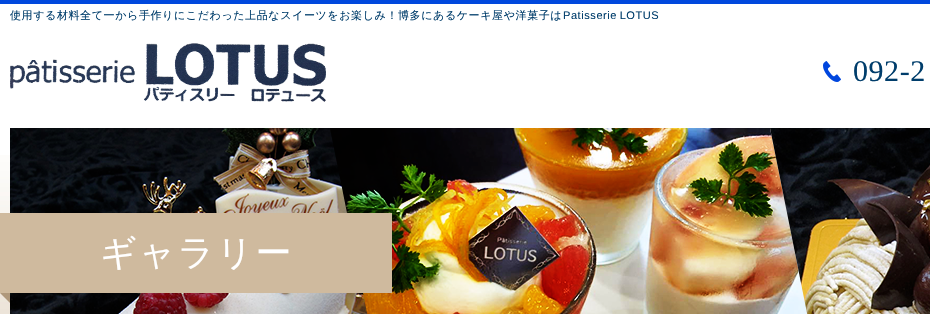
void draw(SkCanvas* canvas) {
    SkPaint paint;
    paint.setAntiAlias(true);
    auto spacedText = [&](const char* s, float x, float y, const SkFont& font, const SkPaint& ink, float letter, float word) {
        std::vector<SkGlyphID> glyphs(font.countText(s, strlen(s), SkTextEncoding::kUTF8));
        std::vector<float> xs(glyphs.size());
        font.textToGlyphs(s, strlen(s), SkTextEncoding::kUTF8, glyphs);
        font.getXPos(glyphs, xs, x);
        float extra = 0;
        for (size_t i = 0; i < glyphs.size(); i++) {
            xs[i] += extra;
            extra += letter + word * (glyphs[i] == font.unicharToGlyph(' '));
        }
        canvas->drawTextBlob(SkTextBlob::MakeFromPosHGlyphs(glyphs, xs, y, font), 0, 0, ink);
    };
    canvas->clear(0xFFFFFFFF);
    paint.setColor(0xFF0048DD);
    canvas->drawRect(SkRect::MakeXYWH(0, 0, 930, 4), paint);
    SkFont font1(fontMgr->matchFamilyStyle("WenQuanYi Zen Hei", SkFontStyle(500, SkFontStyle::kNormal_Width, SkFontStyle::kUpright_Slant)), 11.05f);
    font1.setSubpixel(true);
    paint.setColor(0xFF003D6B);
    spacedText("使用する材料全て一から手作りにこだわった上品なスイーツをお楽しみ！博多にあるケーキ屋や洋菓子は", 10, 19, font1, paint, 0.55f, 0);
    SkFont font2(fontMgr->matchFamilyStyle("Liberation Sans", SkFontStyle::Normal()), 11.05f);
    font2.setSubpixel(true);
    spacedText("Patisserie LOTUS", 563, 19, font2, paint, 0.55f, -1);
    canvas->drawImageRect(SkImages::DeferredFromEncodedData(SkData::MakeFromFileName("img1.png")), SkRect::MakeXYWH(10, 43, 316, 59), SkSamplingOptions());
    canvas->drawImageRect(SkImages::DeferredFromEncodedData(SkData::MakeFromFileName("img2.png")), SkRect::MakeXYWH(823, 61, 18, 21), SkSamplingOptions());
    SkFont font3(fontMgr->matchFamilyStyle("Liberation Serif", SkFontStyle::Normal()), 30);
    font3.setSubpixel(true);
    spacedText("092-2", 853, 81, font3, paint, 0.55f, 0);
    canvas->drawImageRect(SkImages::DeferredFromEncodedData(SkData::MakeFromFileName("img3.png")), SkRect::MakeXYWH(0, 155, 808, 159), SkSamplingOptions());
    canvas->drawImageRect(SkImages::DeferredFromEncodedData(SkData::MakeFromFileName("img4.png")), SkRect::MakeXYWH(10, 128, 920, 186), SkSamplingOptions());
    paint.setColor(0xFFCFBA9E);
    canvas->drawRect(SkRect::MakeXYWH(0, 213, 392, 80), paint);
    SkFont font4(fontMgr->matchFamilyStyle("WenQuanYi Zen Hei", SkFontStyle(500, SkFontStyle::kNormal_Width, SkFontStyle::kUpright_Slant)), 36);
    font4.setSubpixel(true);
    paint.setColor(0xFFFFFFFF);
    spacedText("ギャラリー", 100, 265, font4, paint, 2, 0);
    paint.setColor(0xFFAF987C);
    canvas->drawPath(SkPathBuilder().moveTo(10, 293).lineTo(10, 303).lineTo(0, 293).close().detach(), paint);
}
